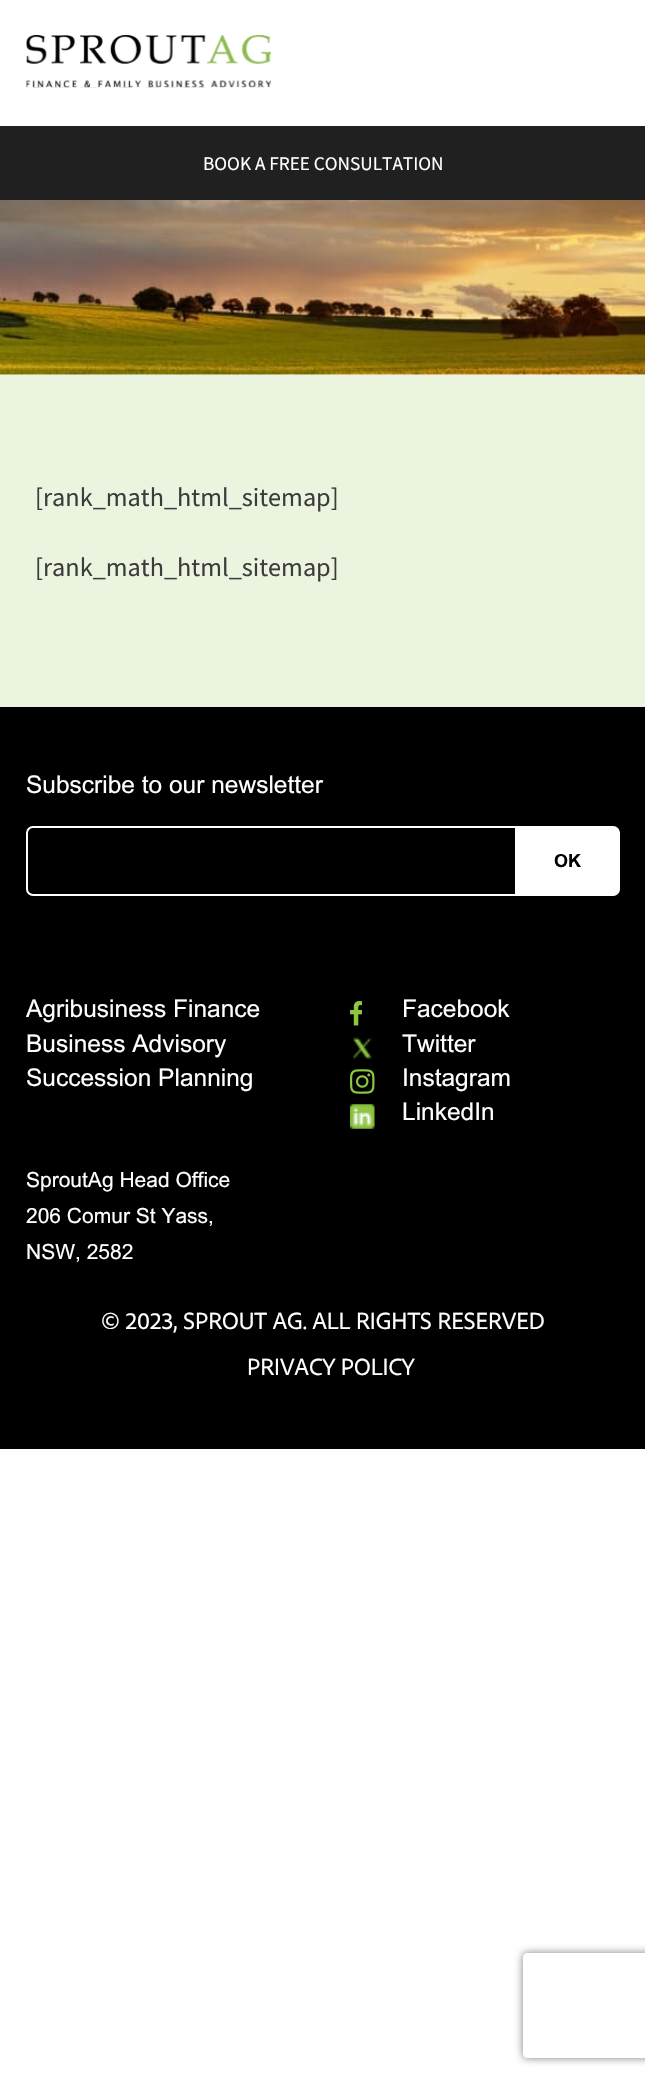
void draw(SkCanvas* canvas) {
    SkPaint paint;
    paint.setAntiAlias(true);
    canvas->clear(0xFFFFFFFF);
    canvas->drawImageRect(SkImages::DeferredFromEncodedData(SkData::MakeFromFileName("img1.png")), SkRect::MakeXYWH(26, 35, 245, 53), SkSamplingOptions());
    paint.setColor(0xFF202020);
    canvas->drawRect(SkRect::MakeXYWH(0, 126, 645, 74), paint);
    SkFont font1(fontMgr->matchFamilyStyle("Source Sans Pro", SkFontStyle::Normal()), 19.25f);
    font1.setSubpixel(true);
    paint.setColor(0xFFFFFFFF);
    canvas->drawString("BOOK A FREE CONSULTATION", 203, 170, font1, paint);
    canvas->drawImageRect(SkImages::DeferredFromEncodedData(SkData::MakeFromFileName("img2.png")), SkRect::MakeXYWH(0, 200, 645, 175), SkSamplingOptions());
    paint.setColor(0xFFEBF4DF);
    canvas->drawRect(SkRect::MakeXYWH(0, 375, 645, 332), paint);
    SkFont font2(fontMgr->matchFamilyStyle("Source Sans Pro", SkFontStyle::Normal()), 26.25f);
    font2.setSubpixel(true);
    paint.setColor(0xFF3C3C3C);
    canvas->drawString("[rank_math_html_sitemap]", 35, 506, font2, paint);
    canvas->drawString("[rank_math_html_sitemap]", 35, 576, font2, paint);
    paint.setColor(0xFF000000);
    canvas->drawRect(SkRect::MakeXYWH(0, 707, 645, 742), paint);
    SkFont font3(fontMgr->matchFamilyStyle("Arial", SkFontStyle::Normal()), 24.5f);
    font3.setSubpixel(true);
    paint.setColor(0xFFFFFFFF);
    canvas->drawString("Subscribe to our newsletter", 26, 793, font3, paint);
    paint.setStyle(SkPaint::kStroke_Style);
    paint.setStrokeWidth(2);
    canvas->drawRoundRect(SkRect::MakeXYWH(27, 827, 592, 68), 6, 6, paint);
    paint.setStyle(SkPaint::kFill_Style);
    canvas->drawPath(SkPathBuilder().moveTo(515, 826).lineTo(611, 826).cubicTo(616, 826, 620, 830, 620, 835).lineTo(620, 887).cubicTo(620, 892, 616, 896, 611, 896).lineTo(515, 896).close().detach(), paint);
    SkFont font4(fontMgr->matchFamilyStyle("Arial", SkFontStyle::Bold()), 18);
    font4.setSubpixel(true);
    paint.setColor(0xFF000000);
    canvas->drawString("OK", 554, 867, font4, paint);
    paint.setColor(0xFFFFFFFF);
    canvas->drawString("Agribusiness Finance", 26, 1017, font3, paint);
    canvas->drawString("Business Advisory", 26, 1052, font3, paint);
    canvas->drawString("Succession Planning", 26, 1086, font3, paint);
    canvas->drawImageRect(SkImages::DeferredFromEncodedData(SkData::MakeFromFileName("img3.png")), SkRect::MakeXYWH(350, 1001, 12, 25), SkSamplingOptions());
    canvas->drawString("Facebook", 402, 1017, font3, paint);
    canvas->drawImageRect(SkImages::DeferredFromEncodedData(SkData::MakeFromFileName("img4.png")), SkRect::MakeXYWH(352, 1037, 20, 23), SkSamplingOptions());
    canvas->drawString("Twitter", 402, 1052, font3, paint);
    canvas->drawImageRect(SkImages::DeferredFromEncodedData(SkData::MakeFromFileName("img5.png")), SkRect::MakeXYWH(350, 1069, 25, 25), SkSamplingOptions());
    canvas->drawString("Instagram", 402, 1086, font3, paint);
    canvas->drawImageRect(SkImages::DeferredFromEncodedData(SkData::MakeFromFileName("img6.png")), SkRect::MakeXYWH(350, 1104, 25, 25), SkSamplingOptions());
    canvas->drawString("LinkedIn", 402, 1120, font3, paint);
    SkFont font5(fontMgr->matchFamilyStyle("Arial", SkFontStyle::Normal()), 21);
    font5.setSubpixel(true);
    canvas->drawString("SproutAg Head Office", 26, 1187, font5, paint);
    canvas->drawString("206 Comur St Yass,", 26, 1223, font5, paint);
    canvas->drawString("NSW, 2582", 26, 1259, font5, paint);
    SkFont font6(fontMgr->matchFamilyStyle("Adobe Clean", SkFontStyle::Normal()), 24.5f);
    font6.setSubpixel(true);
    canvas->drawString("© 2023, SPROUT AG. ALL RIGHTS RESERVED", 101, 1329, font6, paint);
    canvas->drawString("PRIVACY POLICY", 247, 1375, font6, paint);
    canvas->save();
    canvas->clipPath(SkPathBuilder(SkPathFillType::kEvenOdd).moveTo(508, 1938).lineTo(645, 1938).lineTo(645, 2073).lineTo(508, 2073).close().moveTo(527, 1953).lineTo(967, 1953).cubicTo(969, 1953, 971, 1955, 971, 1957).lineTo(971, 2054).cubicTo(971, 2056, 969, 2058, 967, 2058).lineTo(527, 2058).cubicTo(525, 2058, 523, 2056, 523, 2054).lineTo(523, 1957).cubicTo(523, 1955, 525, 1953, 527, 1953).close().detach(), true);
    paint.setColor(0xFF808080);
    paint.setMaskFilter(SkMaskFilter::MakeBlur(kNormal_SkBlurStyle, 4.5f));
    canvas->drawRoundRect(SkRect::MakeXYWH(523, 1953, 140, 105), 4, 4, paint);
    paint.setMaskFilter(nullptr);
    canvas->restore();
}
